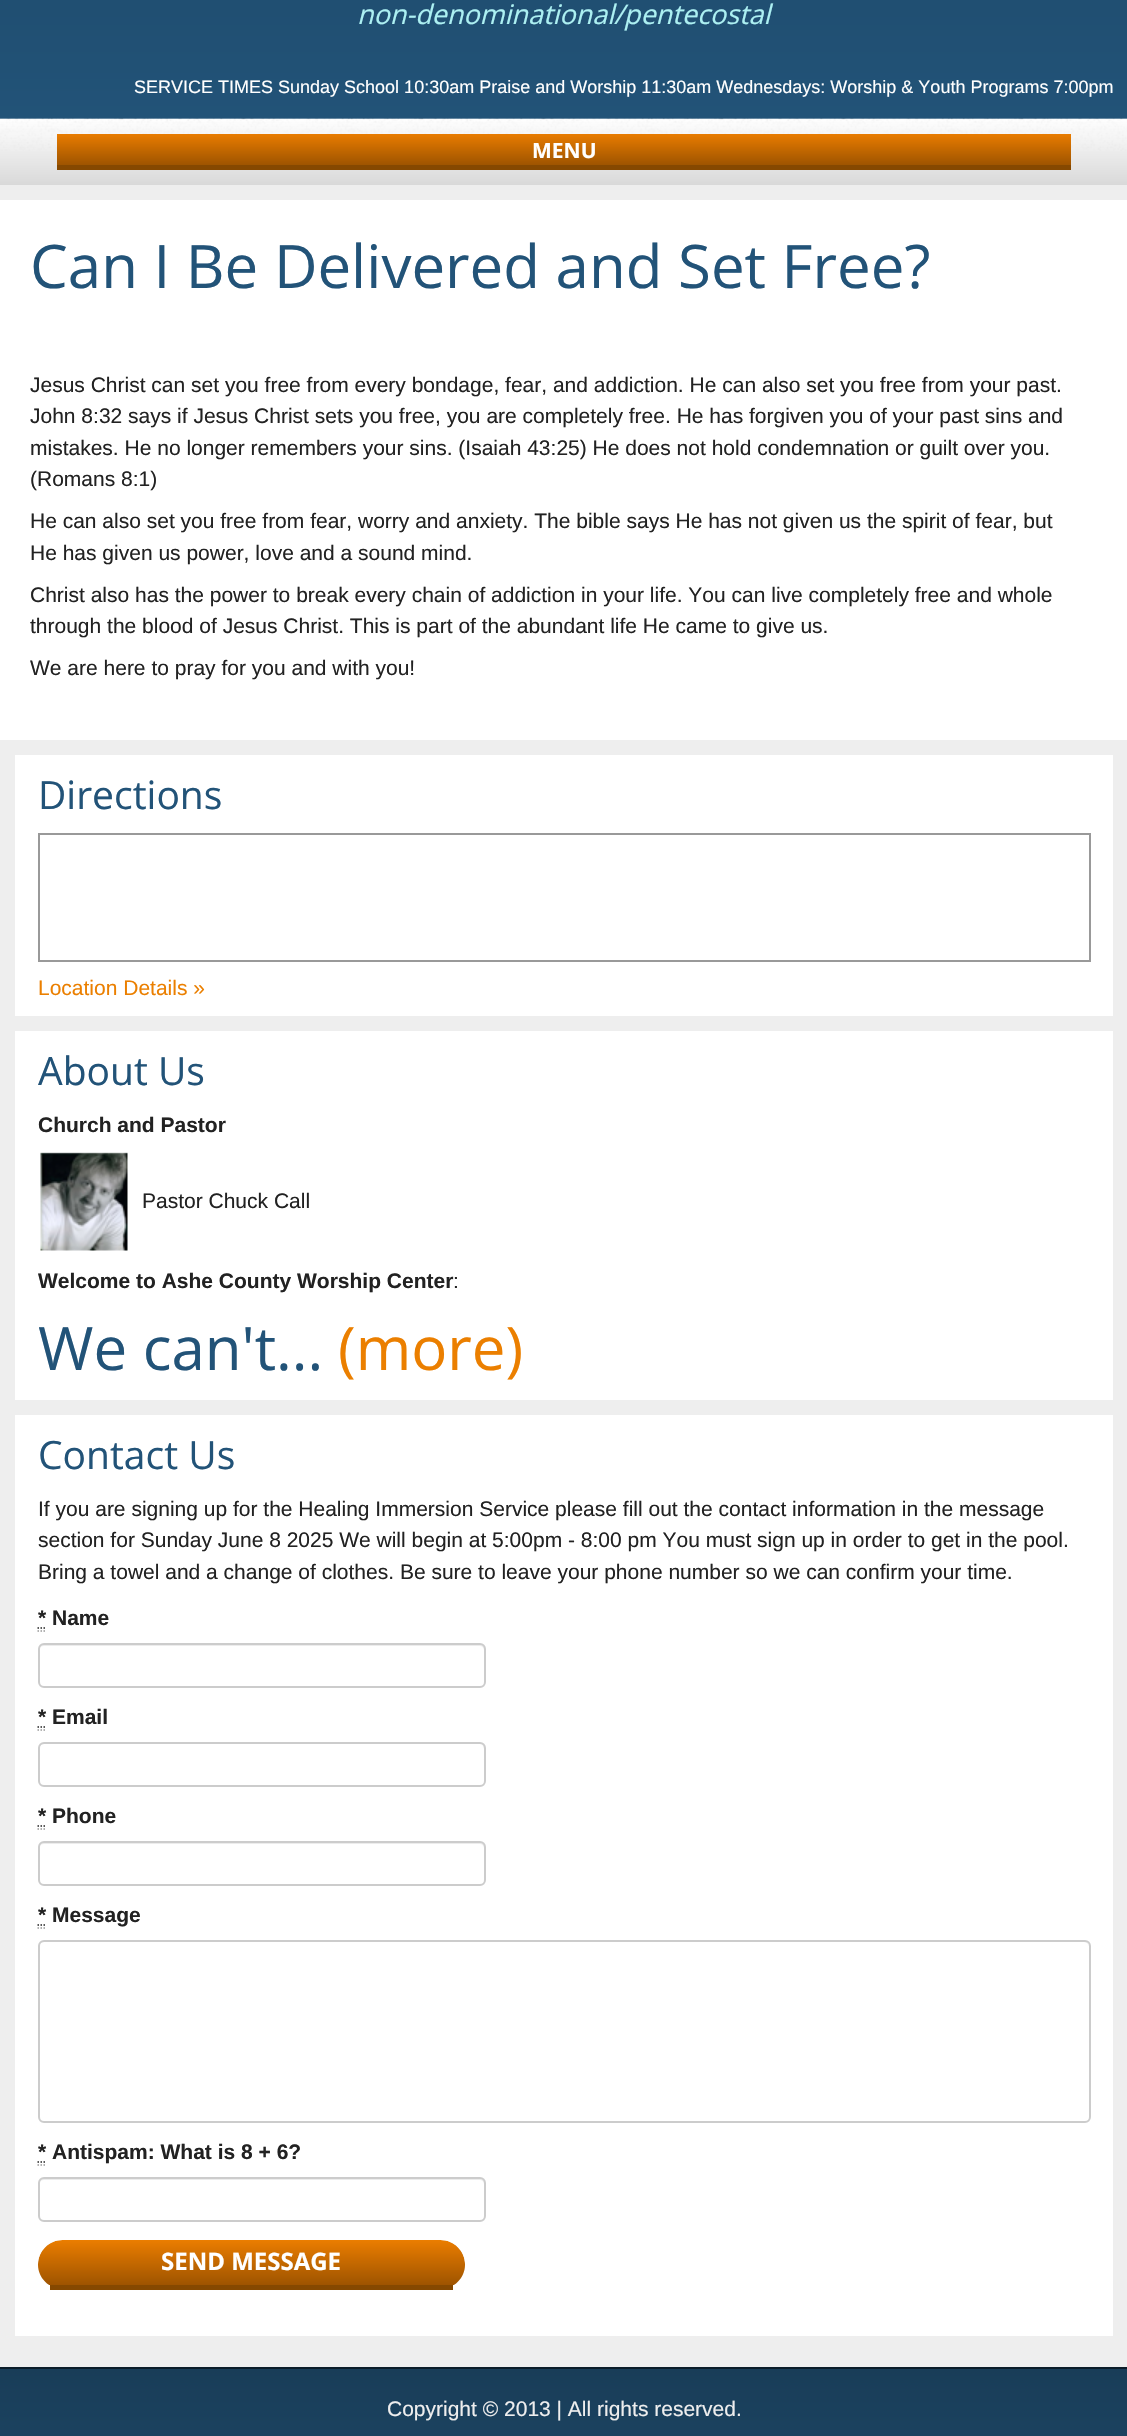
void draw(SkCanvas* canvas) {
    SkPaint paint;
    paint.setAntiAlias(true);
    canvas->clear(0xFFEEEEEE);
    {
        const SkColor colors[] = {0xFF1D4868, 0xFF225378, 0xFF193D58};
        const float stops[] = {0, 1, 1};
        const SkPoint ends[] = {{564, -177}, {564, 119}};
        paint.setShader(SkGradientShader::MakeLinear(ends, colors, stops, 3, SkTileMode::kClamp));
        paint.setAlpha(255);
    }
    canvas->drawRect(SkRect::MakeXYWH(0, 0, 1127, 119), paint);
    SkFont font1(fontMgr->matchFamilyStyle("Open Sans", SkFontStyle::Italic()), 27);
    font1.setSubpixel(true);
    paint.setShader(nullptr);
    paint.setColor(0xFFACF0F2);
    canvas->drawString("non-denominational/pentecostal", 357, 24, font1, paint);
    SkFont font2(fontMgr->matchFamilyStyle("Liberation Sans", SkFontStyle::Normal()), 18);
    font2.setSubpixel(true);
    paint.setColor(0xFFFFFFFF);
    canvas->drawString("SERVICE TIMES Sunday School 10:30am Praise and Worship 11:30am Wednesdays: Worship & Youth Programs 7:00pm", 134, 93, font2, paint);
    {
        const SkColor colors[] = {0xFFFFFFFF, 0xFFD9D9D9};
        const float stops[] = {0, 1};
        const SkPoint ends[] = {{564, 118}, {564, 185}};
        paint.setShader(SkGradientShader::MakeLinear(ends, colors, stops, 2, SkTileMode::kClamp));
        paint.setAlpha(255);
    }
    canvas->drawRect(SkRect::MakeXYWH(0, 119, 1127, 66), paint);
    canvas->drawImageRect(SkImages::DeferredFromEncodedData(SkData::MakeFromFileName("img1.png")), SkRect::MakeXYWH(0, 118, 1127, 33), SkSamplingOptions());
    {
        const SkColor colors[] = {0xFFEB7D00, 0xFF9E5400};
        const float stops[] = {0, 1};
        const SkPoint ends[] = {{564, 133}, {564, 165}};
        paint.setShader(SkGradientShader::MakeLinear(ends, colors, stops, 2, SkTileMode::kClamp));
        paint.setAlpha(255);
    }
    canvas->drawRect(SkRect::MakeXYWH(57, 134, 1014, 31), paint);
    paint.setShader(nullptr);
    paint.setColor(0xFF854800);
    canvas->drawRect(SkRect::MakeXYWH(57, 165, 1014, 5), paint);
    SkFont font3(fontMgr->matchFamilyStyle("Open Sans", SkFontStyle::Bold()), 21);
    font3.setSubpixel(true);
    paint.setColor(0xFFFFFFFF);
    canvas->drawString("MENU", 532, 158, font3, paint);
    canvas->drawRect(SkRect::MakeXYWH(0, 200, 1127, 540), paint);
    SkFont font4(fontMgr->matchFamilyStyle("Open Sans", SkFontStyle::Normal()), 60);
    font4.setSubpixel(true);
    paint.setColor(0xFF225378);
    canvas->drawString("Can I Be Delivered and Set Free?", 30, 288, font4, paint);
    SkFont font5(fontMgr->matchFamilyStyle("Liberation Sans", SkFontStyle::Normal()), 21);
    font5.setSubpixel(true);
    paint.setColor(0xFF222222);
    canvas->drawString("Jesus Christ can set you free from every bondage, fear, and addiction. He can also set you free from your past.", 30, 392, font5, paint);
    canvas->drawString("John 8:32 says if Jesus Christ sets you free, you are completely free. He has forgiven you of your past sins and", 30, 423, font5, paint);
    canvas->drawString("mistakes. He no longer remembers your sins. (Isaiah 43:25) He does not hold condemnation or guilt over you.", 30, 455, font5, paint);
    canvas->drawString("(Romans 8:1)", 30, 486, font5, paint);
    canvas->drawString("He can also set you free from fear, worry and anxiety. The bible says He has not given us the spirit of fear, but", 30, 528, font5, paint);
    canvas->drawString("He has given us power, love and a sound mind.", 30, 560, font5, paint);
    canvas->drawString("Christ also has the power to break every chain of addiction in your life. You can live completely free and whole", 30, 602, font5, paint);
    canvas->drawString("through the blood of Jesus Christ. This is part of the abundant life He came to give us.", 30, 633, font5, paint);
    canvas->drawString("We are here to pray for you and with you!", 30, 675, font5, paint);
    paint.setColor(0xFFFFFFFF);
    canvas->drawRect(SkRect::MakeXYWH(15, 755, 1098, 261), paint);
    SkFont font6(fontMgr->matchFamilyStyle("Open Sans", SkFontStyle::Normal()), 39);
    font6.setSubpixel(true);
    paint.setColor(0xFF225378);
    canvas->drawString("Directions", 38, 809, font6, paint);
    paint.setStyle(SkPaint::kStroke_Style);
    paint.setStrokeWidth(2);
    paint.setColor(0xFF999999);
    canvas->drawRect(SkRect::MakeXYWH(39, 834, 1051, 127), paint);
    paint.setStyle(SkPaint::kFill_Style);
    paint.setColor(0xFFEB7F00);
    canvas->drawString("Location Details »", 38, 995, font5, paint);
    paint.setColor(0xFFFFFFFF);
    canvas->drawRect(SkRect::MakeXYWH(15, 1031, 1098, 369), paint);
    paint.setColor(0xFF225378);
    canvas->drawString("About Us", 38, 1085, font6, paint);
    SkFont font7(fontMgr->matchFamilyStyle("Liberation Sans", SkFontStyle::Bold()), 21);
    font7.setSubpixel(true);
    paint.setColor(0xFF222222);
    canvas->drawString("Church and Pastor", 38, 1132, font7, paint);
    canvas->drawImageRect(SkImages::DeferredFromEncodedData(SkData::MakeFromFileName("img2.png")), SkRect::MakeXYWH(40, 1152, 88, 99), SkSamplingOptions());
    canvas->drawString("Pastor Chuck Call", 142, 1208, font5, paint);
    canvas->drawString("Welcome to Ashe County Worship Center", 38, 1288, font7, paint);
    canvas->drawString(":", 453, 1288, font5, paint);
    paint.setColor(0xFF225378);
    canvas->drawString("We can't...", 38, 1370, font4, paint);
    paint.setColor(0xFFEB7F00);
    canvas->drawString("(more)", 338, 1370, font4, paint);
    paint.setColor(0xFFFFFFFF);
    canvas->drawRect(SkRect::MakeXYWH(15, 1415, 1098, 921), paint);
    paint.setColor(0xFF225378);
    canvas->drawString("Contact Us", 38, 1469, font6, paint);
    paint.setColor(0xFF222222);
    canvas->drawString("If you are signing up for the Healing Immersion Service please fill out the contact information in the message", 38, 1516, font5, paint);
    canvas->drawString("section for Sunday June 8 2025 We will begin at 5:00pm - 8:00 pm You must sign up in order to get in the pool.", 38, 1547, font5, paint);
    canvas->drawString("Bring a towel and a change of clothes. Be sure to leave your phone number so we can confirm your time.", 38, 1579, font5, paint);
    canvas->drawString("* Name", 38, 1625, font7, paint);
    paint.setStyle(SkPaint::kStroke_Style);
    paint.setStrokeWidth(1.5f);
    paint.setColor(0xFF999999);
    canvas->drawPath(SkPathBuilder().moveTo(37.5f, 1631).lineTo(39, 1631).moveTo(40.5f, 1631).lineTo(42, 1631).moveTo(43.5f, 1631).lineTo(45, 1631).detach(), paint);
    paint.setColor(0xFF222222);
    canvas->drawPath(SkPathBuilder().moveTo(37.5f, 1628).lineTo(39, 1628).moveTo(40.5f, 1628).lineTo(42, 1628).moveTo(43.5f, 1628).lineTo(45, 1628).detach(), paint);
    paint.setStyle(SkPaint::kFill_Style);
    paint.setColor(0xFFECECEC);
    canvas->drawPath(SkPathBuilder().moveTo(44, 1646).lineTo(480, 1646).cubicTo(482, 1646, 484, 1648, 484, 1650).lineTo(484, 1684).cubicTo(485, 1683, 485, 1682, 485, 1681).lineTo(485, 1649).cubicTo(485, 1646, 483, 1644, 480, 1644).lineTo(44, 1644).cubicTo(41, 1644, 39, 1646, 39, 1649).lineTo(39, 1650).cubicTo(39, 1648, 41, 1646, 44, 1646).close().detach(), paint);
    paint.setStyle(SkPaint::kStroke_Style);
    paint.setStrokeWidth(2);
    paint.setColor(0xFFCCCCCC);
    canvas->drawRoundRect(SkRect::MakeXYWH(39, 1644, 446, 43), 5, 5, paint);
    paint.setStyle(SkPaint::kFill_Style);
    paint.setColor(0xFF222222);
    canvas->drawString("* Email", 38, 1724, font7, paint);
    paint.setStyle(SkPaint::kStroke_Style);
    paint.setStrokeWidth(1.5f);
    paint.setColor(0xFF999999);
    canvas->drawPath(SkPathBuilder().moveTo(37.5f, 1730).lineTo(39, 1730).moveTo(40.5f, 1730).lineTo(42, 1730).moveTo(43.5f, 1730).lineTo(45, 1730).detach(), paint);
    paint.setColor(0xFF222222);
    canvas->drawPath(SkPathBuilder().moveTo(37.5f, 1727).lineTo(39, 1727).moveTo(40.5f, 1727).lineTo(42, 1727).moveTo(43.5f, 1727).lineTo(45, 1727).detach(), paint);
    paint.setStyle(SkPaint::kFill_Style);
    paint.setColor(0xFFECECEC);
    canvas->drawPath(SkPathBuilder().moveTo(44, 1744).lineTo(480, 1744).cubicTo(486, 1744, 484, 1758, 484, 1760).lineTo(484, 1783).cubicTo(485, 1782, 485, 1781, 485, 1780).lineTo(485, 1748).cubicTo(485, 1745, 483, 1743, 480, 1743).lineTo(44, 1743).cubicTo(41, 1743, 39, 1745, 39, 1748).lineTo(39, 1749).cubicTo(39, 1747, 41, 1744, 44, 1744).close().detach(), paint);
    paint.setStyle(SkPaint::kStroke_Style);
    paint.setStrokeWidth(2);
    paint.setColor(0xFFCCCCCC);
    canvas->drawRoundRect(SkRect::MakeXYWH(39, 1743, 446, 43), 5, 5, paint);
    paint.setStyle(SkPaint::kFill_Style);
    paint.setColor(0xFF222222);
    canvas->drawString("* Phone", 38, 1823, font7, paint);
    paint.setStyle(SkPaint::kStroke_Style);
    paint.setStrokeWidth(1.5f);
    paint.setColor(0xFF999999);
    canvas->drawPath(SkPathBuilder().moveTo(37.5f, 1829).lineTo(39, 1829).moveTo(40.5f, 1829).lineTo(42, 1829).moveTo(43.5f, 1829).lineTo(45, 1829).detach(), paint);
    paint.setColor(0xFF222222);
    canvas->drawPath(SkPathBuilder().moveTo(37.5f, 1826).lineTo(39, 1826).moveTo(40.5f, 1826).lineTo(42, 1826).moveTo(43.5f, 1826).lineTo(45, 1826).detach(), paint);
    paint.setStyle(SkPaint::kFill_Style);
    paint.setColor(0xFFECECEC);
    canvas->drawPath(SkPathBuilder().moveTo(44, 1844).lineTo(480, 1844).cubicTo(482, 1844, 484, 1846, 484, 1848).lineTo(484, 1882).cubicTo(485, 1881, 485, 1880, 485, 1879).lineTo(485, 1847).cubicTo(485, 1844, 483, 1842, 480, 1842).lineTo(44, 1842).cubicTo(41, 1842, 39, 1844, 39, 1847).lineTo(39, 1848).cubicTo(39, 1846, 41, 1844, 44, 1844).close().detach(), paint);
    paint.setStyle(SkPaint::kStroke_Style);
    paint.setStrokeWidth(2);
    paint.setColor(0xFFCCCCCC);
    canvas->drawRoundRect(SkRect::MakeXYWH(39, 1842, 446, 43), 5, 5, paint);
    paint.setStrokeWidth(1.5f);
    paint.setColor(0xFF222222);
    canvas->drawPath(SkPathBuilder().moveTo(37.5f, 1925).lineTo(39, 1925).moveTo(40.5f, 1925).lineTo(42, 1925).moveTo(43.5f, 1925).lineTo(45, 1925).detach(), paint);
    paint.setStyle(SkPaint::kFill_Style);
    canvas->drawString("* Message", 38, 1922, font7, paint);
    paint.setStyle(SkPaint::kStroke_Style);
    paint.setColor(0xFF999999);
    canvas->drawPath(SkPathBuilder().moveTo(37.5f, 1928).lineTo(39, 1928).moveTo(40.5f, 1928).lineTo(42, 1928).moveTo(43.5f, 1928).lineTo(45, 1928).detach(), paint);
    paint.setStyle(SkPaint::kFill_Style);
    paint.setColor(0xFFECECEC);
    canvas->drawPath(SkPathBuilder().moveTo(44, 1942).lineTo(1084, 1942).cubicTo(1087, 1942, 1089, 1945, 1089, 1947).cubicTo(1089, 1944, 1087, 1941, 1084, 1941).lineTo(44, 1941).cubicTo(41, 1941, 39, 1944, 39, 1947).cubicTo(39, 1945, 41, 1942, 44, 1942).close().detach(), paint);
    paint.setStyle(SkPaint::kStroke_Style);
    paint.setStrokeWidth(2);
    paint.setColor(0xFFCCCCCC);
    canvas->drawRoundRect(SkRect::MakeXYWH(39, 1941, 1051, 181), 5, 5, paint);
    paint.setStrokeWidth(1.5f);
    paint.setColor(0xFF222222);
    canvas->drawPath(SkPathBuilder().moveTo(37.5f, 2162).lineTo(39, 2162).moveTo(40.5f, 2162).lineTo(42, 2162).moveTo(43.5f, 2162).lineTo(45, 2162).detach(), paint);
    paint.setStyle(SkPaint::kFill_Style);
    canvas->drawString("* Antispam: What is 8 + 6?", 38, 2159, font7, paint);
    paint.setStyle(SkPaint::kStroke_Style);
    paint.setColor(0xFF999999);
    canvas->drawPath(SkPathBuilder().moveTo(37.5f, 2165).lineTo(39, 2165).moveTo(40.5f, 2165).lineTo(42, 2165).moveTo(43.5f, 2165).lineTo(45, 2165).detach(), paint);
    paint.setStyle(SkPaint::kFill_Style);
    paint.setColor(0xFFECECEC);
    canvas->drawPath(SkPathBuilder().moveTo(44, 2180).lineTo(480, 2180).cubicTo(482, 2180, 484, 2182, 484, 2184).lineTo(484, 2218).cubicTo(485, 2217, 485, 2216, 485, 2215).lineTo(485, 2183).cubicTo(485, 2180, 483, 2178, 480, 2178).lineTo(44, 2178).cubicTo(41, 2178, 39, 2180, 39, 2183).lineTo(39, 2184).cubicTo(39, 2182, 41, 2180, 44, 2180).close().detach(), paint);
    paint.setStyle(SkPaint::kStroke_Style);
    paint.setStrokeWidth(2);
    paint.setColor(0xFFCCCCCC);
    canvas->drawRoundRect(SkRect::MakeXYWH(39, 2178, 446, 43), 5, 5, paint);
    paint.setStyle(SkPaint::kFill_Style);
    paint.setColor(0xFFEFEFEF);
    canvas->drawRoundRect(SkRect::MakeXYWH(38, 2240, 427, 49), 24.5f, 24.5f, paint);
    canvas->save();
    canvas->clipPath(SkPathBuilder().moveTo(62.5f, 2240).lineTo(440.5f, 2240).cubicTo(454, 2240, 465, 2251, 465, 2264.5f).cubicTo(465, 2278, 454, 2289, 440.5f, 2289).lineTo(62.5f, 2289).cubicTo(49, 2289, 38, 2278, 38, 2264.5f).cubicTo(38, 2251, 49, 2240, 62.5f, 2240).close().detach(), true);
    {
        const SkColor colors[] = {0xFFEB7D00, 0xFF9E5400};
        const float stops[] = {0, 1};
        const SkPoint ends[] = {{251, 2240}, {251, 2285}};
        paint.setShader(SkGradientShader::MakeLinear(ends, colors, stops, 2, SkTileMode::kClamp));
        paint.setAlpha(255);
    }
    canvas->drawPath(SkPathBuilder().moveTo(62.5f, 2240).lineTo(440.5f, 2240).cubicTo(454, 2240, 465, 2251, 465, 2264.5f).lineTo(465, 2285).lineTo(38, 2285).lineTo(38, 2264.5f).cubicTo(38, 2251, 49, 2240, 62.5f, 2240).close().detach(), paint);
    canvas->restore();
    paint.setShader(nullptr);
    paint.setColor(0xFF854800);
    canvas->drawRect(SkRect::MakeXYWH(50, 2285, 403, 5), paint);
    SkFont font8(fontMgr->matchFamilyStyle("Open Sans", SkFontStyle::Bold()), 24);
    font8.setSubpixel(true);
    paint.setColor(0xFFFFFFFF);
    canvas->drawString("SEND MESSAGE", 161, 2270, font8, paint);
    {
        const SkColor colors[] = {0xFF193D58, 0xFF225378, 0xFF102738};
        const float stops[] = {0, 1, 1};
        const SkPoint ends[] = {{564, 2369}, {564, 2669}};
        paint.setShader(SkGradientShader::MakeLinear(ends, colors, stops, 3, SkTileMode::kClamp));
        paint.setAlpha(255);
    }
    canvas->drawRect(SkRect::MakeXYWH(0, 2369, 1127, 67), paint);
    paint.setShader(nullptr);
    paint.setColor(0xFF0B1C29);
    canvas->drawRect(SkRect::MakeXYWH(0, 2367, 1127, 2), paint);
    paint.setColor(0xFFEEEEEE);
    canvas->drawString("Copyright © 2013 | All rights reserved.", 387, 2416, font5, paint);
}
